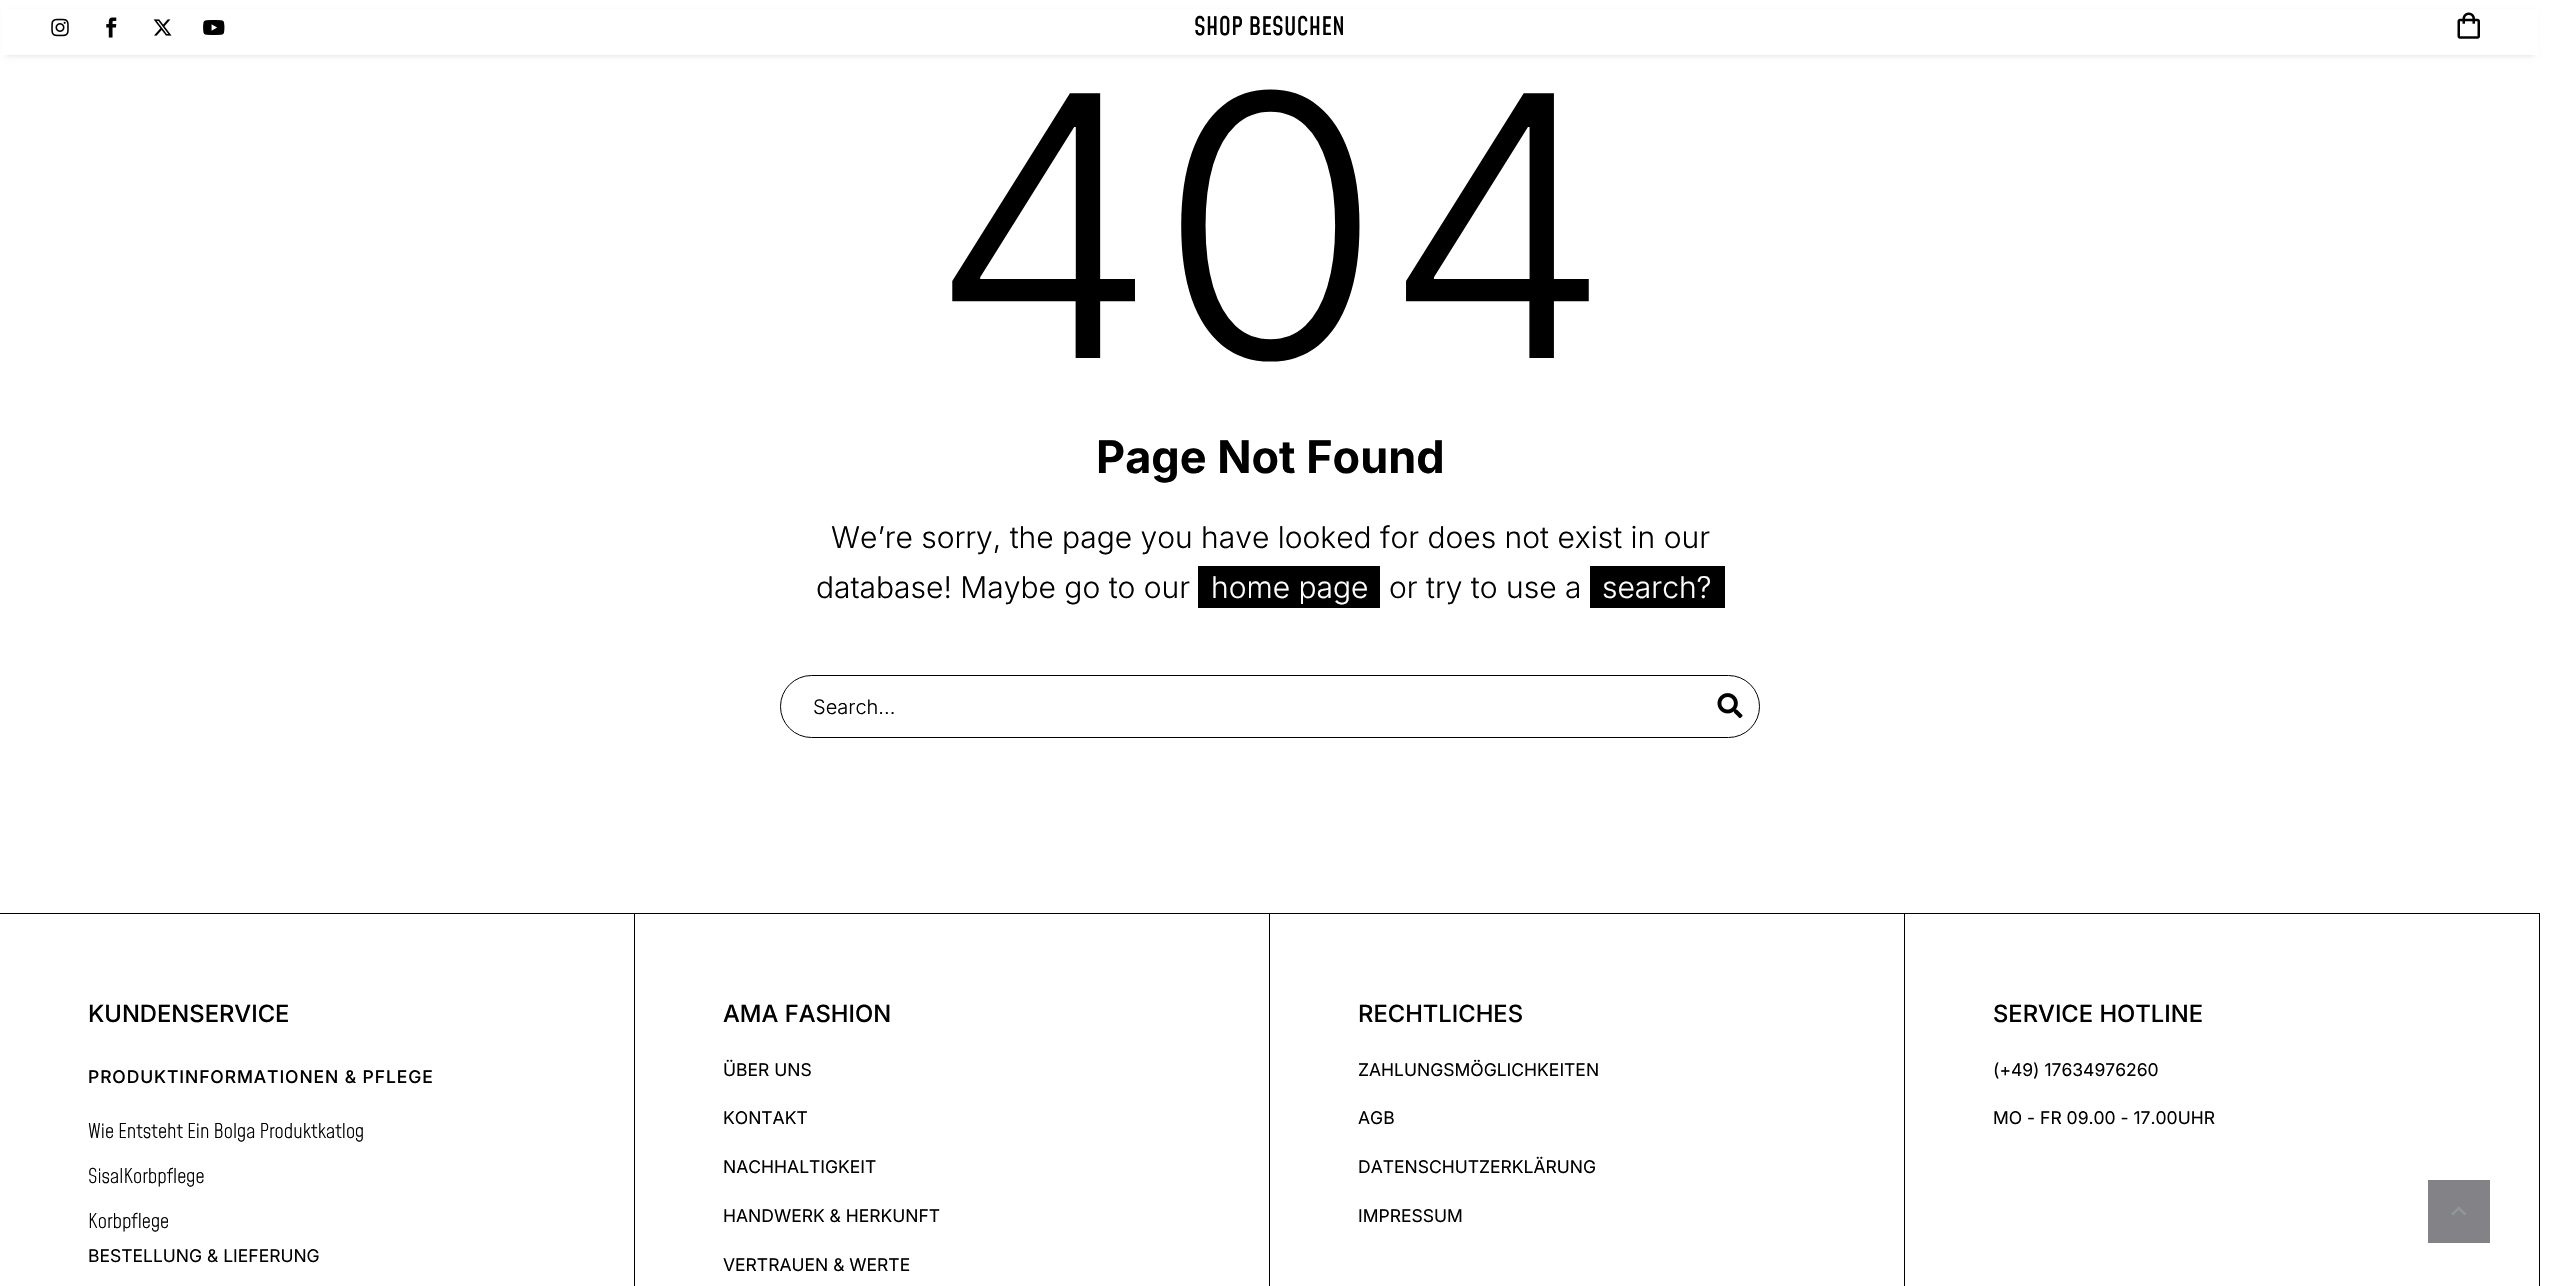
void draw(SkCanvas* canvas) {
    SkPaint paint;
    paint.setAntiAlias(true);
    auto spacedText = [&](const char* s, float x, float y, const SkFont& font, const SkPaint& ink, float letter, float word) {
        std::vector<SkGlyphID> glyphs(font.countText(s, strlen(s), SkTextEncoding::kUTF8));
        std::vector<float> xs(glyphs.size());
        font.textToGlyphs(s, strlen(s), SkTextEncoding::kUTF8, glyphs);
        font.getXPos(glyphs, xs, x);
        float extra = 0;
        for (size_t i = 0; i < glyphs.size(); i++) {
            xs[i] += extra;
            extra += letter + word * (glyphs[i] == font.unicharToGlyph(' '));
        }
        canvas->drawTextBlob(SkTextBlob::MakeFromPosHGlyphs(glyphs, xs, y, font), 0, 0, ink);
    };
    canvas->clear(0xFFFFFFFF);
    paint.setColor(0x26000000);
    paint.setMaskFilter(SkMaskFilter::MakeBlur(kNormal_SkBlurStyle, 3));
    canvas->drawRect(SkRect::MakeXYWH(6, 13, 2528, 42), paint);
    paint.setMaskFilter(nullptr);
    paint.setColor(0xFFFFFFFF);
    canvas->drawRect(SkRect::MakeXYWH(2, 9, 2536, 46), paint);
    canvas->drawImageRect(SkImages::DeferredFromEncodedData(SkData::MakeFromFileName("img1.png")), SkRect::MakeXYWH(51, 18, 18, 19), SkSamplingOptions());
    canvas->drawImageRect(SkImages::DeferredFromEncodedData(SkData::MakeFromFileName("img2.png")), SkRect::MakeXYWH(106, 17, 11, 21), SkSamplingOptions());
    canvas->drawImageRect(SkImages::DeferredFromEncodedData(SkData::MakeFromFileName("img3.png")), SkRect::MakeXYWH(153, 19, 19, 17), SkSamplingOptions());
    canvas->drawImageRect(SkImages::DeferredFromEncodedData(SkData::MakeFromFileName("img4.png")), SkRect::MakeXYWH(203, 20, 22, 15), SkSamplingOptions());
    SkFont font1(fontMgr->matchFamilyStyle("Mohave", SkFontStyle(500, SkFontStyle::kNormal_Width, SkFontStyle::kUpright_Slant)), 25);
    font1.setSubpixel(true);
    paint.setColor(0xFF000000);
    canvas->drawString("SHOP BESUCHEN", 1194, 35, font1, paint);
    canvas->drawImageRect(SkImages::DeferredFromEncodedData(SkData::MakeFromFileName("img5.png")), SkRect::MakeXYWH(2457, 12, 23, 27), SkSamplingOptions());
    SkFont font2(fontMgr->matchFamilyStyle("Inter", SkFontStyle(300, SkFontStyle::kNormal_Width, SkFontStyle::kUpright_Slant)), 364);
    font2.setSubpixel(true);
    canvas->drawString("404", 929, 358, font2, paint);
    SkFont font3(fontMgr->matchFamilyStyle("Inter", SkFontStyle::Bold()), 45);
    font3.setSubpixel(true);
    canvas->drawString("Page Not Found", 1096, 473, font3, paint);
    SkFont font4(fontMgr->matchFamilyStyle("Inter", SkFontStyle(300, SkFontStyle::kNormal_Width, SkFontStyle::kUpright_Slant)), 30);
    font4.setSubpixel(true);
    canvas->drawString("We’re sorry, the page you have looked for does not exist in our", 831, 548, font4, paint);
    canvas->drawString("database! Maybe go to our", 816, 598, font4, paint);
    canvas->drawRect(SkRect::MakeXYWH(1198, 566, 182, 42), paint);
    paint.setColor(0xFFFFFFFF);
    canvas->drawString("home page", 1211, 598, font4, paint);
    paint.setColor(0xFF000000);
    canvas->drawString("or try to use a", 1389, 598, font4, paint);
    canvas->drawRect(SkRect::MakeXYWH(1590, 566, 135, 42), paint);
    paint.setColor(0xFFFFFFFF);
    canvas->drawString("search?", 1602, 598, font4, paint);
    paint.setStyle(SkPaint::kStroke_Style);
    paint.setStrokeWidth(1);
    paint.setColor(0xFF000000);
    canvas->drawRoundRect(SkRect::MakeXYWH(780.5f, 675.5f, 979, 62), 31, 31, paint);
    SkFont font5(fontMgr->matchFamilyStyle("Inter", SkFontStyle(300, SkFontStyle::kNormal_Width, SkFontStyle::kUpright_Slant)), 20);
    font5.setSubpixel(true);
    paint.setStyle(SkPaint::kFill_Style);
    canvas->drawString("Search...", 813, 714, font5, paint);
    canvas->drawImageRect(SkImages::DeferredFromEncodedData(SkData::MakeFromFileName("img6.png")), SkRect::MakeXYWH(1717, 693, 26, 26), SkSamplingOptions());
    canvas->drawRect(SkRect::MakeXYWH(0, 913, 2540, 1), paint);
    canvas->drawRect(SkRect::MakeXYWH(634, 914, 1, 372), paint);
    SkFont font6(fontMgr->matchFamilyStyle("Inter", SkFontStyle(500, SkFontStyle::kNormal_Width, SkFontStyle::kUpright_Slant)), 23.75f);
    font6.setSubpixel(true);
    canvas->drawString("KUNDENSERVICE", 88, 1022, font6, paint);
    SkFont font7(fontMgr->matchFamilyStyle("Inter", SkFontStyle(500, SkFontStyle::kNormal_Width, SkFontStyle::kUpright_Slant)), 17.5f);
    font7.setSubpixel(true);
    spacedText("PRODUKTINFORMATIONEN & PFLEGE", 88, 1083, font7, paint, 0.9f, 0);
    SkFont font8(fontMgr->matchFamilyStyle("Mohave", SkFontStyle(300, SkFontStyle::kNormal_Width, SkFontStyle::kUpright_Slant)), 20);
    font8.setSubpixel(true);
    canvas->drawString("Wie Entsteht Ein Bolga Produktkatlog", 88, 1138, font8, paint);
    canvas->drawString("SisalKorbpflege", 88, 1183, font8, paint);
    canvas->drawString("Korbpflege", 88, 1228, font8, paint);
    SkFont font9(fontMgr->matchFamilyStyle("Inter", SkFontStyle::Normal()), 17.5f);
    font9.setSubpixel(true);
    canvas->drawString("BESTELLUNG & LIEFERUNG", 88, 1262, font9, paint);
    canvas->drawRect(SkRect::MakeXYWH(1269, 914, 1, 372), paint);
    canvas->drawString("AMA FASHION", 723, 1022, font6, paint);
    canvas->drawString("ÜBER UNS", 723, 1076, font9, paint);
    canvas->drawString("KONTAKT", 723, 1124, font9, paint);
    canvas->drawString("NACHHALTIGKEIT", 723, 1173, font9, paint);
    canvas->drawString("HANDWERK & HERKUNFT", 723, 1222, font9, paint);
    canvas->drawString("VERTRAUEN & WERTE", 723, 1271, font9, paint);
    canvas->drawRect(SkRect::MakeXYWH(1904, 914, 1, 372), paint);
    canvas->drawString("RECHTLICHES", 1358, 1022, font6, paint);
    canvas->drawString("ZAHLUNGSMÖGLICHKEITEN", 1358, 1076, font9, paint);
    canvas->drawString("AGB", 1358, 1124, font9, paint);
    canvas->drawString("DATENSCHUTZERKLÄRUNG", 1358, 1173, font9, paint);
    canvas->drawString("IMPRESSUM", 1358, 1222, font9, paint);
    canvas->drawRect(SkRect::MakeXYWH(2539, 914, 1, 372), paint);
    canvas->drawString("SERVICE HOTLINE", 1993, 1022, font6, paint);
    canvas->drawString("(+49) 17634976260", 1993, 1076, font9, paint);
    canvas->drawString("MO - FR 09.00 - 17.00UHR", 1993, 1124, font9, paint);
    paint.setColor(0xFF838387);
    canvas->drawRect(SkRect::MakeXYWH(2428, 1180, 62, 63), paint);
    canvas->drawImageRect(SkImages::DeferredFromEncodedData(SkData::MakeFromFileName("img7.png")), SkRect::MakeXYWH(2451, 1206, 15, 10), SkSamplingOptions());
}
